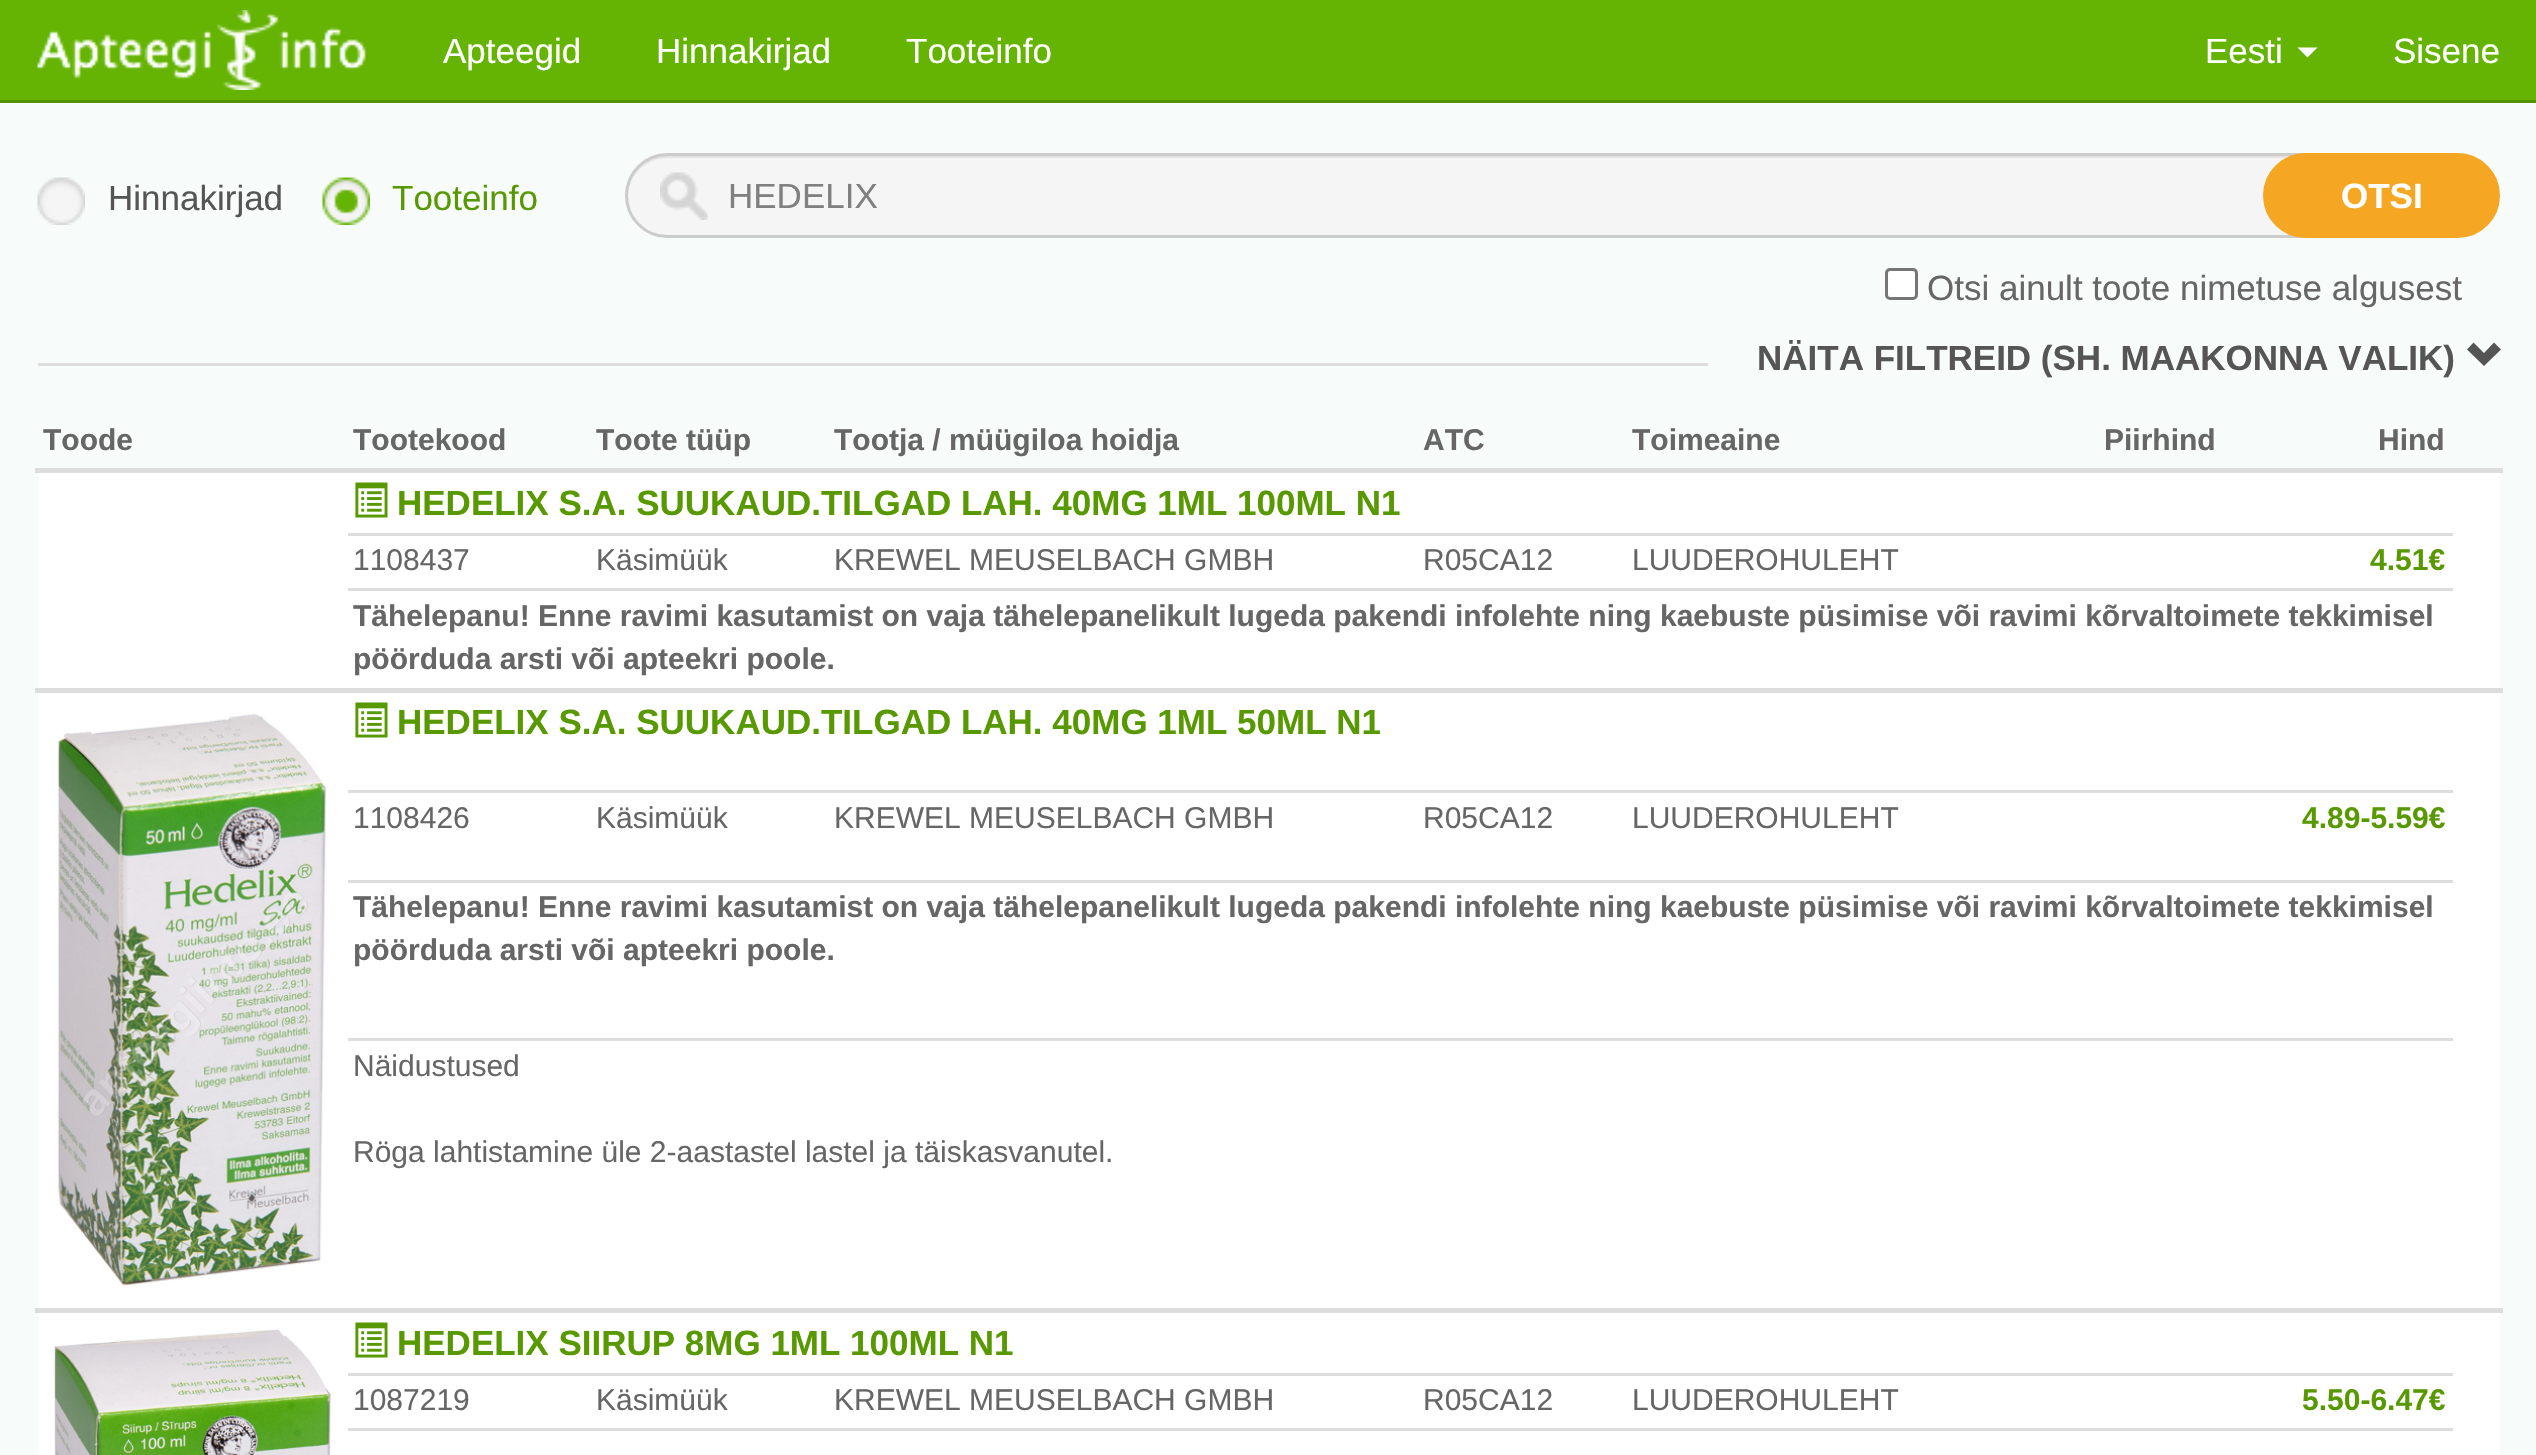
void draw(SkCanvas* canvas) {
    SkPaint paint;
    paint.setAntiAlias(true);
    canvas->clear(0xFFF7FBFA);
    paint.setColor(0xFF65B403);
    canvas->drawRect(SkRect::MakeXYWH(0, 0, 2536, 100), paint);
    paint.setColor(0xFF539302);
    canvas->drawRect(SkRect::MakeXYWH(0, 100, 2536, 3), paint);
    canvas->drawImageRect(SkImages::DeferredFromEncodedData(SkData::MakeFromFileName("img1.png")), SkRect::MakeXYWH(37, 10, 329, 80), SkSamplingOptions());
    SkFont font1(fontMgr->matchFamilyStyle("Liberation Sans", SkFontStyle::Normal()), 35);
    font1.setSubpixel(true);
    paint.setColor(0xFFFFFFFF);
    canvas->drawString("Apteegid", 443, 63, font1, paint);
    canvas->drawString("Hinnakirjad", 656, 63, font1, paint);
    canvas->drawString("Tooteinfo", 906, 63, font1, paint);
    canvas->drawString("Eesti", 2205, 63, font1, paint);
    canvas->drawPath(SkPathBuilder().moveTo(2297.5f, 47.5f).lineTo(2317.5f, 47.5f).lineTo(2307.5f, 57.5f).close().detach(), paint);
    canvas->drawString("Sisene", 2393, 63, font1, paint);
    canvas->drawImageRect(SkImages::DeferredFromEncodedData(SkData::MakeFromFileName("img2.png")), SkRect::MakeXYWH(37, 177, 48, 48), SkSamplingOptions());
    paint.setColor(0xFF555555);
    canvas->drawString("Hinnakirjad", 108, 210, font1, paint);
    canvas->drawImageRect(SkImages::DeferredFromEncodedData(SkData::MakeFromFileName("img3.png")), SkRect::MakeXYWH(322, 177, 48, 48), SkSamplingOptions());
    paint.setColor(0xFF589902);
    canvas->drawString("Tooteinfo", 392, 210, font1, paint);
    paint.setColor(0xFFF5F5F5);
    canvas->drawPath(SkPathBuilder().moveTo(667.5f, 153).lineTo(2315, 153).lineTo(2315, 238).lineTo(667.5f, 238).cubicTo(644, 238, 625, 219, 625, 195.5f).cubicTo(625, 172, 644, 153, 667.5f, 153).close().detach(), paint);
    paint.setColor(0xFFE3E3E3);
    canvas->drawPath(SkPathBuilder().moveTo(668, 158).lineTo(2312, 158).lineTo(2312, 235).lineTo(2313, 235).lineTo(2313, 155).lineTo(668, 155).cubicTo(646, 155, 627, 174, 628, 196).cubicTo(629, 174, 646, 158, 668, 158).close().detach(), paint);
    paint.setStyle(SkPaint::kStroke_Style);
    paint.setStrokeWidth(3);
    paint.setColor(0xFFCCCCCC);
    canvas->drawPath(SkPathBuilder().moveTo(667.5f, 154.5f).lineTo(2313.5f, 154.5f).lineTo(2313.5f, 236.5f).lineTo(667.5f, 236.5f).cubicTo(645, 236.5f, 626.5f, 218, 626.5f, 195.5f).cubicTo(626.5f, 173, 645, 154.5f, 667.5f, 154.5f).close().detach(), paint);
    canvas->drawImageRect(SkImages::DeferredFromEncodedData(SkData::MakeFromFileName("img4.png")), SkRect::MakeXYWH(660, 172, 48, 48), SkSamplingOptions());
    paint.setStyle(SkPaint::kFill_Style);
    paint.setColor(0xFF808080);
    canvas->drawString("HEDELIX", 728, 208, font1, paint);
    paint.setColor(0xFFF5A623);
    canvas->drawRoundRect(SkRect::MakeXYWH(2264.5f, 154.5f, 234, 82), 41, 41, paint);
    paint.setStyle(SkPaint::kStroke_Style);
    canvas->drawRoundRect(SkRect::MakeXYWH(2264.5f, 154.5f, 234, 82), 41, 41, paint);
    SkFont font2(fontMgr->matchFamilyStyle("Liberation Sans", SkFontStyle::Bold()), 35);
    font2.setSubpixel(true);
    paint.setStyle(SkPaint::kFill_Style);
    paint.setColor(0xFFFFFFFF);
    canvas->drawString("OTSI", 2341, 208, font2, paint);
    canvas->drawRoundRect(SkRect::MakeXYWH(1886.5f, 269.5f, 30, 29), 3.5f, 3.5f, paint);
    paint.setStyle(SkPaint::kStroke_Style);
    paint.setColor(0xFF767676);
    canvas->drawRoundRect(SkRect::MakeXYWH(1886.5f, 269.5f, 30, 29), 3.5f, 3.5f, paint);
    paint.setStyle(SkPaint::kFill_Style);
    paint.setColor(0xFF666666);
    canvas->drawString("Otsi ainult toote nimetuse algusest", 1927, 300, font1, paint);
    paint.setColor(0xFFDEDEDE);
    canvas->drawRect(SkRect::MakeXYWH(38, 363, 1670, 3), paint);
    paint.setColor(0xFF555555);
    canvas->drawString("NÄITA FILTREID (SH. MAAKONNA VALIK)", 1757, 370, font2, paint);
    canvas->drawPath(SkPathBuilder().moveTo(2467, 349.5f).lineTo(2484, 366).lineTo(2501, 349.5f).lineTo(2494, 342.5f).lineTo(2484, 353).lineTo(2473.5f, 342.5f).close().detach(), paint);
    SkFont font3(fontMgr->matchFamilyStyle("Liberation Sans", SkFontStyle::Bold()), 30);
    font3.setSubpixel(true);
    paint.setColor(0xFF666666);
    canvas->drawString("Toode", 43, 450, font3, paint);
    canvas->drawString("Tootekood", 353, 450, font3, paint);
    canvas->drawString("Toote tüüp", 596, 450, font3, paint);
    canvas->drawString("Tootja / müügiloa hoidja", 834, 450, font3, paint);
    canvas->drawString("ATC", 1423, 450, font3, paint);
    canvas->drawString("Toimeaine", 1632, 450, font3, paint);
    canvas->drawString("Piirhind", 2104, 450, font3, paint);
    canvas->drawString("Hind", 2378, 450, font3, paint);
    paint.setColor(0xFFDDDDDD);
    canvas->drawRect(SkRect::MakeXYWH(35, 468, 2468, 5), paint);
    paint.setColor(0xFFFFFFFF);
    canvas->drawRect(SkRect::MakeXYWH(38, 473, 2462, 215), paint);
    canvas->drawImageRect(SkImages::DeferredFromEncodedData(SkData::MakeFromFileName("img5.png")), SkRect::MakeXYWH(355, 482, 33, 36), SkSamplingOptions());
    paint.setColor(0xFF589902);
    canvas->drawString("HEDELIX S.A. SUUKAUD.TILGAD LAH. 40MG 1ML 100ML N1", 397, 515, font2, paint);
    SkFont font4(fontMgr->matchFamilyStyle("Liberation Sans", SkFontStyle::Normal()), 30);
    font4.setSubpixel(true);
    paint.setColor(0xFF666666);
    canvas->drawString("1108437", 353, 570, font4, paint);
    canvas->drawString("Käsimüük", 596, 570, font4, paint);
    canvas->drawString("KREWEL MEUSELBACH GMBH", 834, 570, font4, paint);
    canvas->drawString("R05CA12", 1423, 570, font4, paint);
    canvas->drawString("LUUDEROHULEHT", 1632, 570, font4, paint);
    paint.setColor(0xFFDDDDDD);
    canvas->drawRect(SkRect::MakeXYWH(348, 533, 2105, 3), paint);
    paint.setColor(0xFF589902);
    canvas->drawString("4.51€", 2370, 570, font3, paint);
    paint.setColor(0xFFDDDDDD);
    canvas->drawRect(SkRect::MakeXYWH(348, 588, 2105, 3), paint);
    paint.setColor(0xFF666666);
    canvas->drawString("Tähelepanu! Enne ravimi kasutamist on vaja tähelepanelikult lugeda pakendi infolehte ning kaebuste püsimise või ravimi kõrvaltoimete tekkimisel", 353, 626, font3, paint);
    canvas->drawString("pöörduda arsti või apteekri poole.", 353, 669, font3, paint);
    paint.setColor(0xFFFFFFFF);
    canvas->drawRect(SkRect::MakeXYWH(38, 693, 2462, 615), paint);
    paint.setColor(0xFFDDDDDD);
    canvas->drawRect(SkRect::MakeXYWH(35, 688, 2468, 5), paint);
    canvas->drawImageRect(SkImages::DeferredFromEncodedData(SkData::MakeFromFileName("img6.png")), SkRect::MakeXYWH(57, 713, 270, 573), SkSamplingOptions());
    canvas->drawImageRect(SkImages::DeferredFromEncodedData(SkData::MakeFromFileName("img5.png")), SkRect::MakeXYWH(355, 702, 33, 36), SkSamplingOptions());
    paint.setColor(0xFF589902);
    canvas->drawString("HEDELIX S.A. SUUKAUD.TILGAD LAH. 40MG 1ML 50ML N1", 397, 734, font2, paint);
    paint.setColor(0xFF666666);
    canvas->drawString("1108426", 353, 828, font4, paint);
    canvas->drawString("Käsimüük", 596, 828, font4, paint);
    canvas->drawString("KREWEL MEUSELBACH GMBH", 834, 828, font4, paint);
    canvas->drawString("R05CA12", 1423, 828, font4, paint);
    canvas->drawString("LUUDEROHULEHT", 1632, 828, font4, paint);
    paint.setColor(0xFFDDDDDD);
    canvas->drawRect(SkRect::MakeXYWH(348, 790, 2105, 3), paint);
    paint.setColor(0xFF589902);
    canvas->drawString("4.89-5.59€", 2302, 828, font3, paint);
    paint.setColor(0xFFDDDDDD);
    canvas->drawRect(SkRect::MakeXYWH(348, 880, 2105, 3), paint);
    paint.setColor(0xFF666666);
    canvas->drawString("Tähelepanu! Enne ravimi kasutamist on vaja tähelepanelikult lugeda pakendi infolehte ning kaebuste püsimise või ravimi kõrvaltoimete tekkimisel", 353, 917, font3, paint);
    canvas->drawString("pöörduda arsti või apteekri poole.", 353, 960, font3, paint);
    paint.setColor(0xFFDDDDDD);
    canvas->drawRect(SkRect::MakeXYWH(348, 1038, 2105, 3), paint);
    paint.setColor(0xFF666666);
    canvas->drawString("Näidustused", 353, 1076, font4, paint);
    canvas->drawString("Röga lahtistamine üle 2-aastastel lastel ja täiskasvanutel.", 353, 1162, font4, paint);
    paint.setColor(0xFFFFFFFF);
    canvas->drawRect(SkRect::MakeXYWH(38, 1313, 2462, 142), paint);
    paint.setColor(0xFFDDDDDD);
    canvas->drawRect(SkRect::MakeXYWH(35, 1308, 2468, 5), paint);
    canvas->drawImageRect(SkImages::DeferredFromEncodedData(SkData::MakeFromFileName("img7.png")), SkRect::MakeXYWH(54, 1329, 277, 126), SkSamplingOptions());
    canvas->drawImageRect(SkImages::DeferredFromEncodedData(SkData::MakeFromFileName("img5.png")), SkRect::MakeXYWH(355, 1322, 33, 36), SkSamplingOptions());
    paint.setColor(0xFF589902);
    canvas->drawString("HEDELIX SIIRUP 8MG 1ML 100ML N1", 397, 1355, font2, paint);
    paint.setColor(0xFF666666);
    canvas->drawString("1087219", 353, 1410, font4, paint);
    canvas->drawString("Käsimüük", 596, 1410, font4, paint);
    canvas->drawString("KREWEL MEUSELBACH GMBH", 834, 1410, font4, paint);
    canvas->drawString("R05CA12", 1423, 1410, font4, paint);
    canvas->drawString("LUUDEROHULEHT", 1632, 1410, font4, paint);
    paint.setColor(0xFFDDDDDD);
    canvas->drawRect(SkRect::MakeXYWH(348, 1373, 2105, 3), paint);
    paint.setColor(0xFF589902);
    canvas->drawString("5.50-6.47€", 2302, 1410, font3, paint);
    paint.setColor(0xFFDDDDDD);
    canvas->drawRect(SkRect::MakeXYWH(348, 1428, 2105, 3), paint);
}
